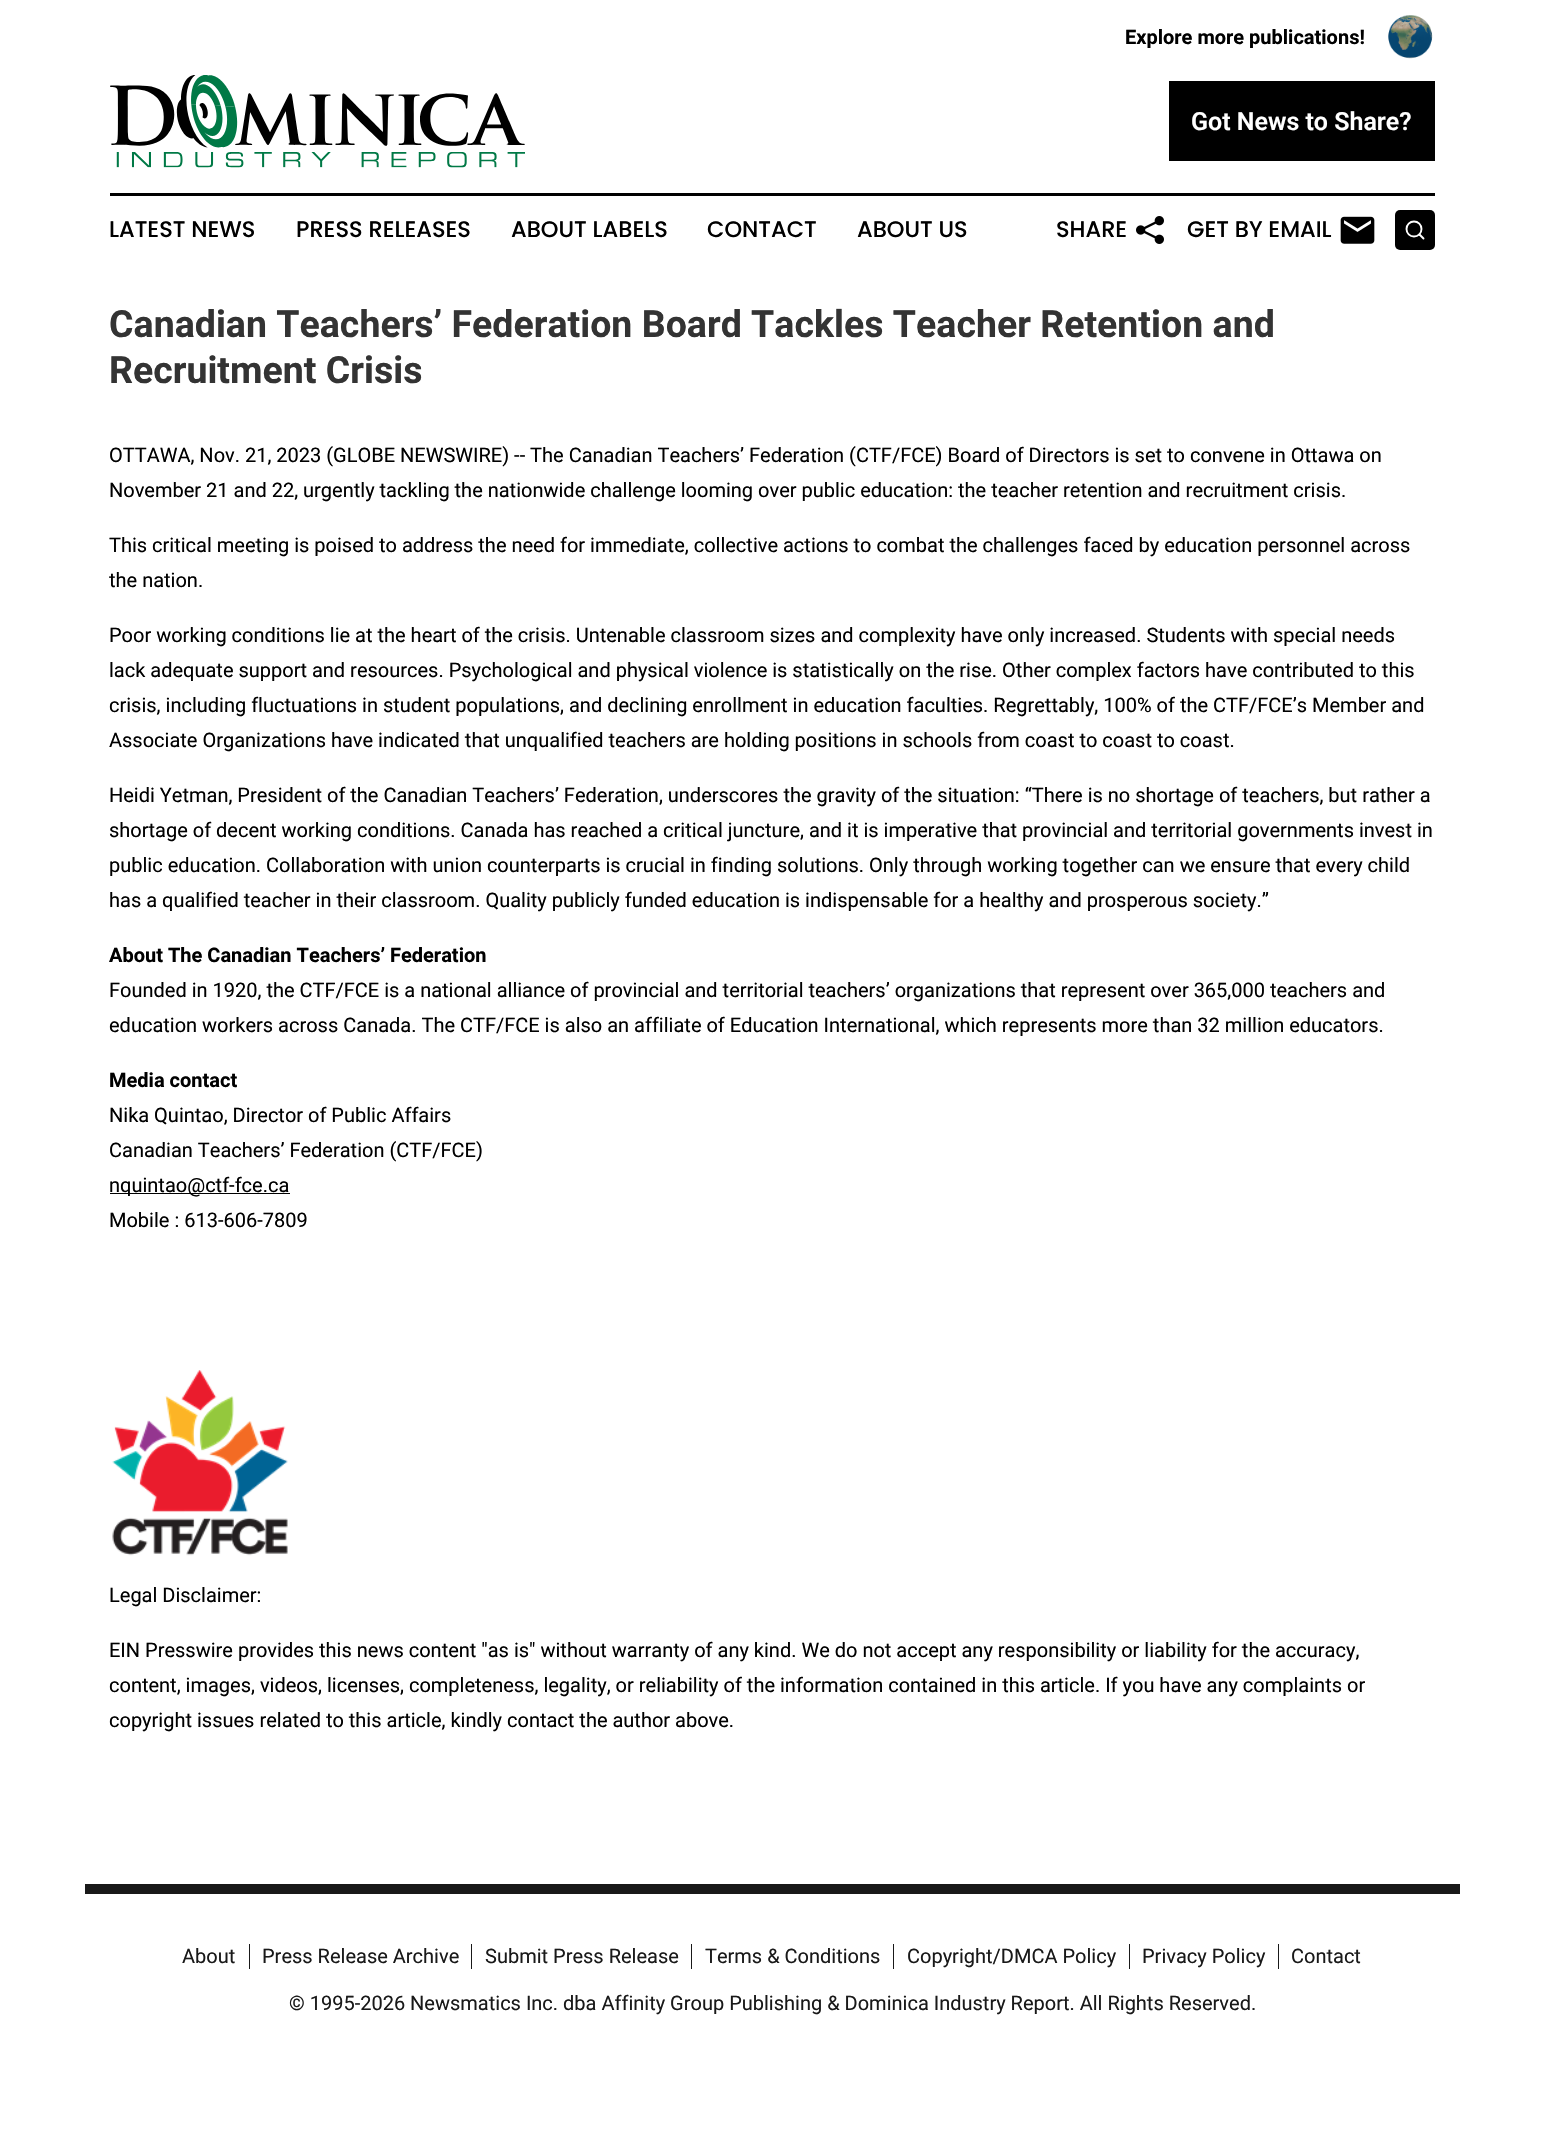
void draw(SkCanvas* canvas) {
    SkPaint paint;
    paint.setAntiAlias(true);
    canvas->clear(0xFFFFFFFF);
    SkFont font1(fontMgr->matchFamilyStyle("Roboto", SkFontStyle::Bold()), 20);
    font1.setSubpixel(true);
    paint.setColor(0xFF000000);
    canvas->drawString("Explore more publications!", 1125, 44, font1, paint);
    canvas->drawImageRect(SkImages::DeferredFromEncodedData(SkData::MakeFromFileName("img1.png")), SkRect::MakeXYWH(1388, 15, 45, 44), SkSamplingOptions());
    canvas->drawImageRect(SkImages::DeferredFromEncodedData(SkData::MakeFromFileName("img2.png")), SkRect::MakeXYWH(110, 75, 415, 93), SkSamplingOptions());
    canvas->drawRect(SkRect::MakeXYWH(1169, 81, 266, 80), paint);
    SkFont font2(fontMgr->matchFamilyStyle("Roboto", SkFontStyle(600, SkFontStyle::kNormal_Width, SkFontStyle::kUpright_Slant)), 25);
    font2.setSubpixel(true);
    paint.setColor(0xFFFFFFFF);
    canvas->drawString("Got News to Share?", 1191, 130, font2, paint);
    paint.setColor(0xFF000000);
    canvas->drawRect(SkRect::MakeXYWH(110, 193, 1325, 3), paint);
    SkFont font3(fontMgr->matchFamilyStyle("Poppins", SkFontStyle(500, SkFontStyle::kNormal_Width, SkFontStyle::kUpright_Slant)), 22.5f);
    font3.setSubpixel(true);
    canvas->drawString("LATEST NEWS", 109, 237, font3, paint);
    canvas->drawString("PRESS RELEASES", 296, 237, font3, paint);
    canvas->drawString("ABOUT LABELS", 511, 237, font3, paint);
    canvas->drawString("CONTACT", 707, 237, font3, paint);
    canvas->drawString("ABOUT US", 857, 237, font3, paint);
    canvas->drawString("SHARE", 1056, 237, font3, paint);
    canvas->drawImageRect(SkImages::DeferredFromEncodedData(SkData::MakeFromFileName("img3.png")), SkRect::MakeXYWH(1136, 216, 28, 28), SkSamplingOptions());
    canvas->drawString("GET BY EMAIL", 1187, 237, font3, paint);
    canvas->drawImageRect(SkImages::DeferredFromEncodedData(SkData::MakeFromFileName("img4.png")), SkRect::MakeXYWH(1340, 216, 35, 28), SkSamplingOptions());
    canvas->drawRoundRect(SkRect::MakeXYWH(1395, 210, 40, 40), 5, 5, paint);
    paint.setStyle(SkPaint::kStroke_Style);
    paint.setStrokeWidth(1.9f);
    paint.setColor(0xFFFFFFFF);
    canvas->drawCircle(1414, 229, 7.5f, paint);
    paint.setStrokeCap(SkPaint::kRound_Cap);
    paint.setStrokeJoin(SkPaint::kRound_Join);
    canvas->drawPath(SkPathBuilder().moveTo(1423.5f, 238.5f).lineTo(1419.5f, 234.5f).detach(), paint);
    SkFont font4(fontMgr->matchFamilyStyle("Roboto", SkFontStyle::Bold()), 37.5f);
    font4.setSubpixel(true);
    paint.setStyle(SkPaint::kFill_Style);
    paint.setColor(0xFF333333);
    canvas->drawString("Canadian Teachers’ Federation Board Tackles Teacher Retention and", 109, 337, font4, paint);
    canvas->drawString("Recruitment Crisis", 109, 383, font4, paint);
    SkFont font5(fontMgr->matchFamilyStyle("Roboto", SkFontStyle::Normal()), 20);
    font5.setSubpixel(true);
    paint.setColor(0xFF000000);
    canvas->drawString("OTTAWA, Nov. 21, 2023 (GLOBE NEWSWIRE) -- The Canadian Teachers’ Federation (CTF/FCE) Board of Directors is set to convene in Ottawa on", 109, 462, font5, paint);
    canvas->drawString("November 21 and 22, urgently tackling the nationwide challenge looming over public education: the teacher retention and recruitment crisis.", 109, 497, font5, paint);
    canvas->drawString("This critical meeting is poised to address the need for immediate, collective actions to combat the challenges faced by education personnel across", 109, 552, font5, paint);
    canvas->drawString("the nation.", 109, 587, font5, paint);
    canvas->drawString("Poor working conditions lie at the heart of the crisis. Untenable classroom sizes and complexity have only increased. Students with special needs", 109, 642, font5, paint);
    canvas->drawString("lack adequate support and resources. Psychological and physical violence is statistically on the rise. Other complex factors have contributed to this", 109, 677, font5, paint);
    canvas->drawString("crisis, including fluctuations in student populations, and declining enrollment in education faculties. Regrettably, 100% of the CTF/FCE’s Member and", 109, 712, font5, paint);
    canvas->drawString("Associate Organizations have indicated that unqualified teachers are holding positions in schools from coast to coast to coast.", 109, 747, font5, paint);
    canvas->drawString("Heidi Yetman, President of the Canadian Teachers’ Federation, underscores the gravity of the situation: “There is no shortage of teachers, but rather a", 109, 802, font5, paint);
    canvas->drawString("shortage of decent working conditions. Canada has reached a critical juncture, and it is imperative that provincial and territorial governments invest in", 109, 837, font5, paint);
    canvas->drawString("public education. Collaboration with union counterparts is crucial in finding solutions. Only through working together can we ensure that every child", 109, 872, font5, paint);
    canvas->drawString("has a qualified teacher in their classroom. Quality publicly funded education is indispensable for a healthy and prosperous society.”", 109, 907, font5, paint);
    canvas->drawString("About The Canadian Teachers’ Federation", 109, 962, font1, paint);
    canvas->drawString("Founded in 1920, the CTF/FCE is a national alliance of provincial and territorial teachers’ organizations that represent over 365,000 teachers and", 109, 997, font5, paint);
    canvas->drawString("education workers across Canada. The CTF/FCE is also an affiliate of Education International, which represents more than 32 million educators.", 109, 1032, font5, paint);
    canvas->drawString("Media contact", 109, 1087, font1, paint);
    canvas->drawString("Nika Quintao, Director of Public Affairs", 109, 1122, font5, paint);
    canvas->drawString("Canadian Teachers’ Federation (CTF/FCE)", 109, 1157, font5, paint);
    canvas->drawRect(SkRect::MakeXYWH(110, 1193, 180, 1), paint);
    canvas->drawString("nquintao@ctf-fce.ca", 109, 1192, font5, paint);
    canvas->drawString("Mobile : 613-606-7809", 109, 1227, font5, paint);
    canvas->drawImageRect(SkImages::DeferredFromEncodedData(SkData::MakeFromFileName("img5.png")), SkRect::MakeXYWH(112, 1370, 176, 186), SkSamplingOptions());
    canvas->drawString("Legal Disclaimer:", 109, 1602, font5, paint);
    canvas->drawString("EIN Presswire provides this news content \"as is\" without warranty of any kind. We do not accept any responsibility or liability for the accuracy,", 109, 1657, font5, paint);
    canvas->drawString("content, images, videos, licenses, completeness, legality, or reliability of the information contained in this article. If you have any complaints or", 109, 1692, font5, paint);
    canvas->drawString("copyright issues related to this article, kindly contact the author above.", 109, 1727, font5, paint);
    paint.setColor(0xFF191919);
    canvas->drawRect(SkRect::MakeXYWH(85, 1884, 1375, 10), paint);
    canvas->drawRect(SkRect::MakeXYWH(249, 1944, 1, 25), paint);
    canvas->drawString("About", 182, 1963, font5, paint);
    canvas->drawRect(SkRect::MakeXYWH(471, 1944, 1, 25), paint);
    canvas->drawString("Press Release Archive", 262, 1963, font5, paint);
    canvas->drawRect(SkRect::MakeXYWH(691, 1944, 1, 25), paint);
    canvas->drawString("Submit Press Release", 485, 1963, font5, paint);
    canvas->drawRect(SkRect::MakeXYWH(893, 1944, 1, 25), paint);
    canvas->drawString("Terms & Conditions", 705, 1963, font5, paint);
    canvas->drawRect(SkRect::MakeXYWH(1129, 1944, 1, 25), paint);
    canvas->drawString("Copyright/DMCA Policy", 907, 1963, font5, paint);
    canvas->drawRect(SkRect::MakeXYWH(1278, 1944, 1, 25), paint);
    canvas->drawString("Privacy Policy", 1142, 1963, font5, paint);
    canvas->drawString("Contact", 1291, 1963, font5, paint);
    canvas->drawString("© 1995-2026 Newsmatics Inc. dba Affinity Group Publishing & Dominica Industry Report. All Rights Reserved.", 289, 2010, font5, paint);
}
